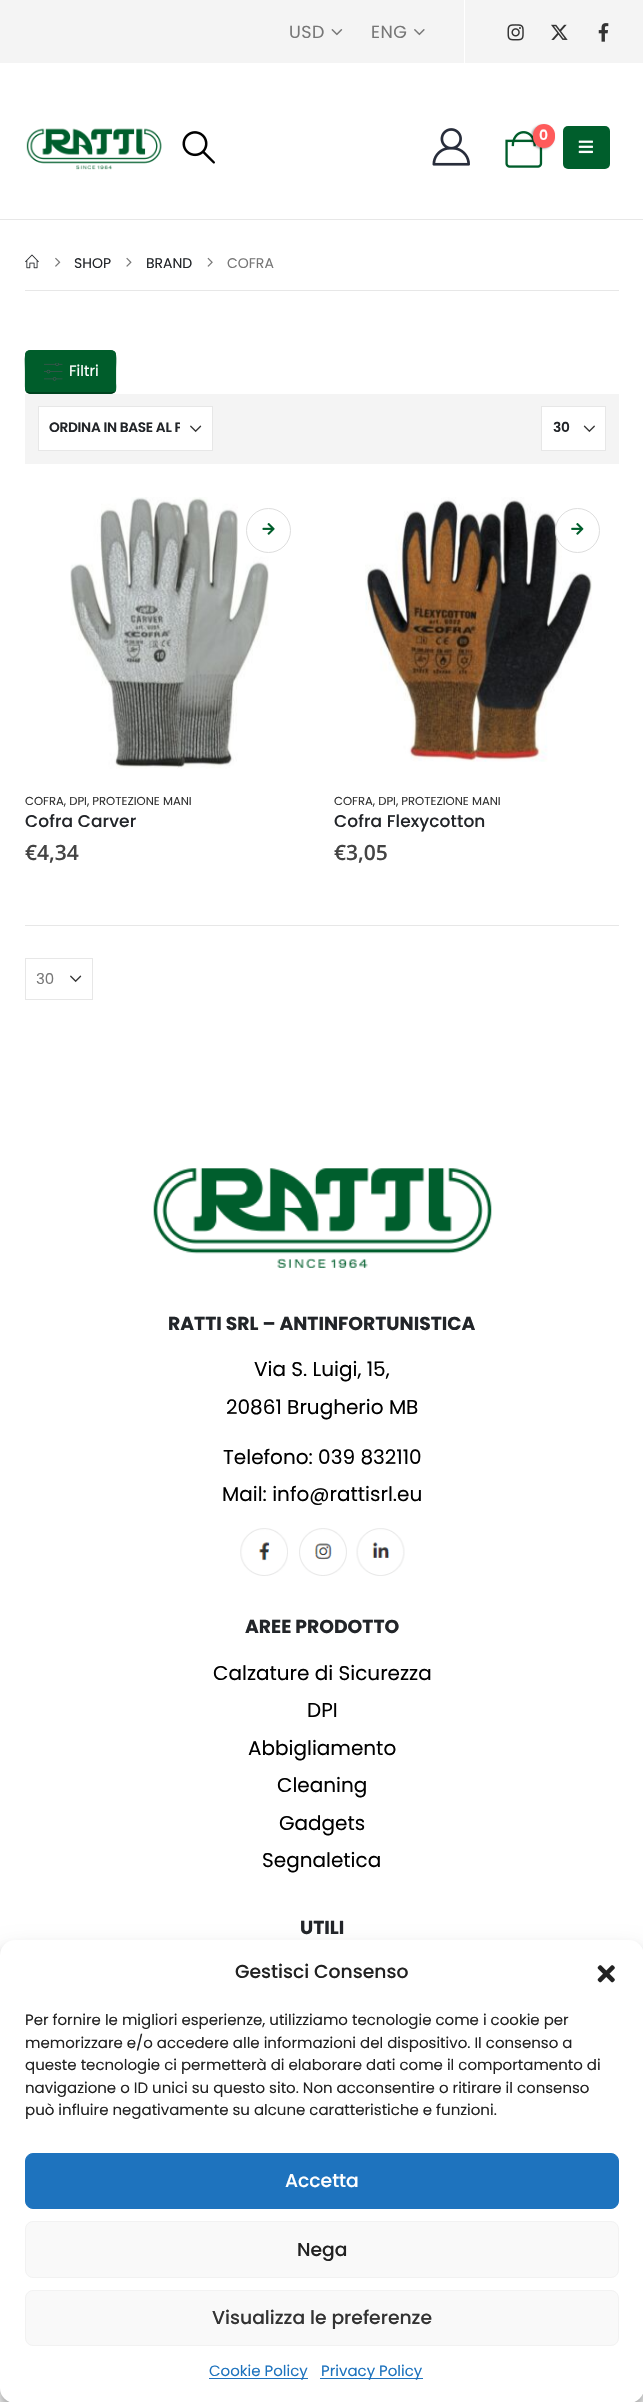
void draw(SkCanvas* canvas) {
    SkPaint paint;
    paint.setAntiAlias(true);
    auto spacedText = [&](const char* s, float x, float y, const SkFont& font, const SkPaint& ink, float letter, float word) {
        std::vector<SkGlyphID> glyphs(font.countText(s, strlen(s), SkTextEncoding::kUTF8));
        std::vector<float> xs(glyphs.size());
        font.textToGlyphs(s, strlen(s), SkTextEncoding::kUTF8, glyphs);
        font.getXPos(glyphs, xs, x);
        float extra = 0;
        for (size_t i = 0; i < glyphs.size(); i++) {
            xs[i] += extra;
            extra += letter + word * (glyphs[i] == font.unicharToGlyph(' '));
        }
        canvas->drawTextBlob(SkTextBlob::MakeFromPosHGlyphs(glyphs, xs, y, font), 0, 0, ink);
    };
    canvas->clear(0xFFFFFFFF);
    paint.setColor(0xFFF4F4F4);
    canvas->drawRect(SkRect::MakeXYWH(0, 0, 643, 63), paint);
    SkFont font1(fontMgr->matchFamilyStyle("Poppins", SkFontStyle::Normal()), 17.5f);
    font1.setSubpixel(true);
    paint.setColor(0xFF777777);
    spacedText("USD", 289, 38, font1, paint, 0.5f, 0);
    canvas->drawImageRect(SkImages::DeferredFromEncodedData(SkData::MakeFromFileName("img1.png")), SkRect::MakeXYWH(331, 29, 12, 7), SkSamplingOptions());
    spacedText("ENG", 371, 38, font1, paint, 0.5f, 0);
    canvas->drawImageRect(SkImages::DeferredFromEncodedData(SkData::MakeFromFileName("img2.png")), SkRect::MakeXYWH(414, 29, 11, 7), SkSamplingOptions());
    paint.setColor(0xFFFFFFFF);
    canvas->drawRect(SkRect::MakeXYWH(464, 0, 1, 63), paint);
    canvas->drawImageRect(SkImages::DeferredFromEncodedData(SkData::MakeFromFileName("img3.png")), SkRect::MakeXYWH(507, 24, 17, 17), SkSamplingOptions());
    canvas->drawImageRect(SkImages::DeferredFromEncodedData(SkData::MakeFromFileName("img4.png")), SkRect::MakeXYWH(551, 24, 17, 16), SkSamplingOptions());
    canvas->drawImageRect(SkImages::DeferredFromEncodedData(SkData::MakeFromFileName("img5.png")), SkRect::MakeXYWH(598, 23, 11, 19), SkSamplingOptions());
    canvas->drawImageRect(SkImages::DeferredFromEncodedData(SkData::MakeFromFileName("img6.png")), SkRect::MakeXYWH(26, 128, 136, 42), SkSamplingOptions());
    canvas->drawImageRect(SkImages::DeferredFromEncodedData(SkData::MakeFromFileName("img7.png")), SkRect::MakeXYWH(182, 131, 33, 33), SkSamplingOptions());
    canvas->drawImageRect(SkImages::DeferredFromEncodedData(SkData::MakeFromFileName("img8.png")), SkRect::MakeXYWH(432, 128, 38, 38), SkSamplingOptions());
    canvas->drawImageRect(SkImages::DeferredFromEncodedData(SkData::MakeFromFileName("img9.png")), SkRect::MakeXYWH(505, 131, 38, 37), SkSamplingOptions());
    paint.setColor(0x4D000000);
    paint.setMaskFilter(SkMaskFilter::MakeBlur(kNormal_SkBlurStyle, 1));
    canvas->drawRoundRect(SkRect::MakeXYWH(531, 125, 23, 24), 11.5f, 11.5f, paint);
    paint.setMaskFilter(nullptr);
    paint.setColor(0xFFFF5B5B);
    canvas->drawRoundRect(SkRect::MakeXYWH(533, 124, 22, 24), 11, 11, paint);
    SkFont font2(fontMgr->matchFamilyStyle("Poppins", SkFontStyle(600, SkFontStyle::kNormal_Width, SkFontStyle::kUpright_Slant)), 14);
    font2.setSubpixel(true);
    paint.setColor(0xFFFFFFFF);
    canvas->drawString("0", 539, 140, font2, paint);
    paint.setColor(0xFF005E2C);
    canvas->drawRoundRect(SkRect::MakeXYWH(563, 126, 47, 43), 5, 5, paint);
    canvas->drawImageRect(SkImages::DeferredFromEncodedData(SkData::MakeFromFileName("img10.png")), SkRect::MakeXYWH(578, 140, 15, 14), SkSamplingOptions());
    paint.setColor(0xFFE7E7E7);
    canvas->drawRect(SkRect::MakeXYWH(0, 219, 643, 1), paint);
    canvas->drawImageRect(SkImages::DeferredFromEncodedData(SkData::MakeFromFileName("img11.png")), SkRect::MakeXYWH(25, 254, 14, 15), SkSamplingOptions());
    canvas->drawImageRect(SkImages::DeferredFromEncodedData(SkData::MakeFromFileName("img12.png")), SkRect::MakeXYWH(55, 257, 6, 10), SkSamplingOptions());
    SkFont font3(fontMgr->matchFamilyStyle("Poppins", SkFontStyle::Normal()), 14);
    font3.setSubpixel(true);
    paint.setColor(0xFF222529);
    canvas->drawString("SHOP", 74, 268, font3, paint);
    canvas->drawImageRect(SkImages::DeferredFromEncodedData(SkData::MakeFromFileName("img13.png")), SkRect::MakeXYWH(126, 257, 6, 10), SkSamplingOptions());
    canvas->drawString("BRAND", 146, 268, font3, paint);
    canvas->drawImageRect(SkImages::DeferredFromEncodedData(SkData::MakeFromFileName("img14.png")), SkRect::MakeXYWH(207, 257, 6, 10), SkSamplingOptions());
    paint.setColor(0xFF777777);
    canvas->drawString("COFRA", 227, 268, font3, paint);
    paint.setColor(0xFFE7E7E7);
    canvas->drawRect(SkRect::MakeXYWH(25, 290, 594, 1), paint);
    paint.setColor(0xFF005D2B);
    canvas->drawRoundRect(SkRect::MakeXYWH(25, 350, 91, 44), 5, 5, paint);
    paint.setStyle(SkPaint::kStroke_Style);
    paint.setStrokeWidth(1.2f);
    paint.setColor(0xFF002B14);
    canvas->drawPath(SkPathBuilder().moveTo(114.5f, 392).lineTo(111.5f, 393).lineTo(29.5f, 393).lineTo(27, 392).detach(), paint);
    paint.setColor(0xFF005D2B);
    canvas->drawPath(SkPathBuilder().moveTo(27, 392).cubicTo(25, 389.5f, 25.5f, 385.5f, 25.5f, 383).lineTo(25.5f, 372).cubicTo(25.5f, 349, 21.5f, 350.5f, 43.5f, 350.5f).lineTo(97.5f, 350.5f).cubicTo(120, 350.5f, 115.5f, 349, 115.5f, 372).lineTo(115.5f, 383).cubicTo(115.5f, 385.5f, 116.5f, 389.5f, 114.5f, 392).detach(), paint);
    canvas->drawImageRect(SkImages::DeferredFromEncodedData(SkData::MakeFromFileName("img15.png")), SkRect::MakeXYWH(44, 363, 19, 18), SkSamplingOptions());
    SkFont font4(fontMgr->matchFamilyStyle("Poppins", SkFontStyle::Normal()), 15);
    font4.setSubpixel(true);
    paint.setStyle(SkPaint::kFill_Style);
    paint.setColor(0xFFFFFFFF);
    canvas->drawString("Filtri", 69, 376, font4, paint);
    paint.setColor(0xFFF4F4F4);
    canvas->drawRect(SkRect::MakeXYWH(25, 394, 594, 70), paint);
    paint.setColor(0xFFFFFFFF);
    canvas->drawRect(SkRect::MakeXYWH(39, 407, 173, 43), paint);
    canvas->drawImageRect(SkImages::DeferredFromEncodedData(SkData::MakeFromFileName("img16.png")), SkRect::MakeXYWH(190, 425, 12, 8), SkSamplingOptions());
    paint.setStyle(SkPaint::kStroke_Style);
    paint.setStrokeWidth(1);
    paint.setColor(0xFFE7E7E7);
    canvas->drawRect(SkRect::MakeXYWH(38.5f, 406.5f, 174, 44), paint);
    canvas->save();
    canvas->clipRect(SkRect::MakeXYWH(49, 419, 131, 20));
    SkFont font5(fontMgr->matchFamilyStyle("Poppins", SkFontStyle(600, SkFontStyle::kNormal_Width, SkFontStyle::kUpright_Slant)), 13.75f);
    font5.setSubpixel(true);
    paint.setStyle(SkPaint::kFill_Style);
    paint.setColor(0xFF222529);
    spacedText("ORDINA IN BASE AL P", 49, 432, font5, paint, -0.3f, 0);
    canvas->restore();
    paint.setColor(0xFFFFFFFF);
    canvas->drawRect(SkRect::MakeXYWH(542, 407, 63, 43), paint);
    canvas->drawImageRect(SkImages::DeferredFromEncodedData(SkData::MakeFromFileName("img17.png")), SkRect::MakeXYWH(583, 425, 12, 8), SkSamplingOptions());
    paint.setStyle(SkPaint::kStroke_Style);
    paint.setColor(0xFFE7E7E7);
    canvas->drawRect(SkRect::MakeXYWH(541.5f, 406.5f, 64, 44), paint);
    paint.setStyle(SkPaint::kFill_Style);
    paint.setColor(0xFF222529);
    spacedText("30", 553, 432, font5, paint, -0.3f, 0);
    canvas->drawImageRect(SkImages::DeferredFromEncodedData(SkData::MakeFromFileName("img18.png")), SkRect::MakeXYWH(70, 497, 199, 272), SkSamplingOptions());
    paint.setStyle(SkPaint::kStroke_Style);
    paint.setColor(0xFFDDDDDD);
    canvas->drawCircle(268.5f, 530.5f, 22, paint);
    canvas->drawImageRect(SkImages::DeferredFromEncodedData(SkData::MakeFromFileName("img19.png")), SkRect::MakeXYWH(262, 523, 13, 12), SkSamplingOptions());
    SkFont font6(fontMgr->matchFamilyStyle("Poppins", SkFontStyle::Normal()), 11.6f);
    font6.setSubpixel(true);
    paint.setStyle(SkPaint::kFill_Style);
    paint.setColor(0xFF333333);
    canvas->drawString("COFRA, DPI, PROTEZIONE MANI", 25, 805, font6, paint);
    SkFont font7(fontMgr->matchFamilyStyle("Poppins", SkFontStyle(500, SkFontStyle::kNormal_Width, SkFontStyle::kUpright_Slant)), 17);
    font7.setSubpixel(true);
    paint.setColor(0xFF222529);
    spacedText("Cofra Carver", 25, 827, font7, paint, 0.1f, 0);
    SkFont font8(fontMgr->matchFamilyStyle("Open Sans", SkFontStyle(600, SkFontStyle::kNormal_Width, SkFontStyle::kUpright_Slant)), 21);
    font8.setSubpixel(true);
    paint.setColor(0xFF444444);
    canvas->drawString("€4,34", 25, 860, font8, paint);
    canvas->drawImageRect(SkImages::DeferredFromEncodedData(SkData::MakeFromFileName("img20.png")), SkRect::MakeXYWH(365, 497, 227, 265), SkSamplingOptions());
    paint.setColor(0xFFFFFFFF);
    canvas->drawCircle(577.5f, 530.5f, 22, paint);
    paint.setStyle(SkPaint::kStroke_Style);
    paint.setColor(0xFFDDDDDD);
    canvas->drawCircle(577.5f, 530.5f, 22, paint);
    canvas->drawImageRect(SkImages::DeferredFromEncodedData(SkData::MakeFromFileName("img21.png")), SkRect::MakeXYWH(571, 523, 13, 12), SkSamplingOptions());
    paint.setStyle(SkPaint::kFill_Style);
    paint.setColor(0xFF333333);
    canvas->drawString("COFRA, DPI, PROTEZIONE MANI", 334, 805, font6, paint);
    paint.setColor(0xFF222529);
    spacedText("Cofra Flexycotton", 334, 827, font7, paint, 0.1f, 0);
    paint.setColor(0xFF444444);
    canvas->drawString("€3,05", 334, 860, font8, paint);
    paint.setColor(0xFFE7E7E7);
    canvas->drawRect(SkRect::MakeXYWH(25, 925, 594, 1), paint);
    canvas->drawImageRect(SkImages::DeferredFromEncodedData(SkData::MakeFromFileName("img16.png")), SkRect::MakeXYWH(70, 975, 12, 8), SkSamplingOptions());
    paint.setStyle(SkPaint::kStroke_Style);
    canvas->drawRect(SkRect::MakeXYWH(25.5f, 958.5f, 67, 41), paint);
    paint.setStyle(SkPaint::kFill_Style);
    paint.setColor(0xFF777777);
    canvas->drawString("30", 36, 984, font4, paint);
    canvas->drawImageRect(SkImages::DeferredFromEncodedData(SkData::MakeFromFileName("img22.png")), SkRect::MakeXYWH(153, 1168, 339, 100), SkSamplingOptions());
    SkFont font9(fontMgr->matchFamilyStyle("Poppins", SkFontStyle::Bold()), 18.75f);
    font9.setSubpixel(true);
    paint.setColor(0xFF222529);
    canvas->drawString("RATTI SRL – ANTINFORTUNISTICA", 168, 1330, font9, paint);
    SkFont font10(fontMgr->matchFamilyStyle("Poppins", SkFontStyle::Normal()), 20);
    font10.setSubpixel(true);
    paint.setColor(0xFF000000);
    canvas->drawString("Via S. Luigi, 15,", 254, 1376, font10, paint);
    canvas->drawString("20861 Brugherio MB", 226, 1414, font10, paint);
    canvas->drawString("Telefono: 039 832110", 223, 1464, font10, paint);
    canvas->drawString("Mail: info@rattisrl.eu", 222, 1501, font10, paint);
    canvas->drawImageRect(SkImages::DeferredFromEncodedData(SkData::MakeFromFileName("img23.png")), SkRect::MakeXYWH(240, 1528, 48, 48), SkSamplingOptions());
    canvas->drawImageRect(SkImages::DeferredFromEncodedData(SkData::MakeFromFileName("img24.png")), SkRect::MakeXYWH(299, 1528, 48, 48), SkSamplingOptions());
    canvas->drawImageRect(SkImages::DeferredFromEncodedData(SkData::MakeFromFileName("img25.png")), SkRect::MakeXYWH(356, 1528, 49, 48), SkSamplingOptions());
    paint.setColor(0xFF222529);
    canvas->drawString("AREE PRODOTTO", 245, 1633, font9, paint);
    paint.setColor(0xFF000000);
    canvas->drawString("Calzature di Sicurezza", 213, 1680, font10, paint);
    canvas->drawString("DPI", 307, 1717, font10, paint);
    canvas->drawString("Abbigliamento", 248, 1755, font10, paint);
    canvas->drawString("Cleaning", 277, 1792, font10, paint);
    canvas->drawString("Gadgets", 279, 1830, font10, paint);
    canvas->drawString("Segnaletica", 262, 1867, font10, paint);
    paint.setColor(0xFF222529);
    canvas->drawString("UTILI", 300, 1934, font9, paint);
    paint.setColor(0x3B000000);
    paint.setMaskFilter(SkMaskFilter::MakeBlur(kNormal_SkBlurStyle, 4));
    canvas->drawRoundRect(SkRect::MakeXYWH(0, 1948, 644, 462), 15, 15, paint);
    paint.setMaskFilter(nullptr);
    paint.setColor(0x30000000);
    paint.setMaskFilter(SkMaskFilter::MakeBlur(kNormal_SkBlurStyle, 12.5f));
    canvas->drawRoundRect(SkRect::MakeXYWH(0, 1953, 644, 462), 15, 15, paint);
    paint.setMaskFilter(nullptr);
    paint.setColor(0xFFFFFFFF);
    canvas->drawRoundRect(SkRect::MakeXYWH(0, 1940, 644, 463), 15, 15, paint);
    SkFont font11(fontMgr->matchFamilyStyle("Poppins", SkFontStyle(500, SkFontStyle::kNormal_Width, SkFontStyle::kUpright_Slant)), 18.75f);
    font11.setSubpixel(true);
    paint.setColor(0xFF222222);
    canvas->drawString("Gestisci Consenso", 235, 1978, font11, paint);
    canvas->drawImageRect(SkImages::DeferredFromEncodedData(SkData::MakeFromFileName("img26.png")), SkRect::MakeXYWH(597, 1965, 18, 18), SkSamplingOptions());
    canvas->drawString("Per fornire le migliori esperienze, utilizziamo tecnologie come i cookie per", 25, 2025, font4, paint);
    canvas->drawString("memorizzare e/o accedere alle informazioni del dispositivo. Il consenso a", 25, 2048, font4, paint);
    canvas->drawString("queste tecnologie ci permetterà di elaborare dati come il comportamento di", 25, 2070, font4, paint);
    canvas->drawString("navigazione o ID unici su questo sito. Non acconsentire o ritirare il consenso", 25, 2093, font4, paint);
    canvas->drawString("può influire negativamente su alcune caratteristiche e funzioni.", 25, 2115, font4, paint);
    paint.setColor(0xFF1E73BE);
    canvas->drawRoundRect(SkRect::MakeXYWH(25.5f, 2153.5f, 593, 55), 7.5f, 7.5f, paint);
    paint.setStyle(SkPaint::kStroke_Style);
    canvas->drawRoundRect(SkRect::MakeXYWH(25.5f, 2153.5f, 593, 55), 7.5f, 7.5f, paint);
    paint.setStyle(SkPaint::kFill_Style);
    paint.setColor(0xFFFFFFFF);
    canvas->drawString("Accetta", 285, 2187, font11, paint);
    paint.setColor(0xFFF9F9F9);
    canvas->drawRoundRect(SkRect::MakeXYWH(25.5f, 2221.5f, 593, 56), 7.5f, 7.5f, paint);
    paint.setStyle(SkPaint::kStroke_Style);
    paint.setColor(0xFFF2F2F2);
    canvas->drawRoundRect(SkRect::MakeXYWH(25.5f, 2221.5f, 593, 56), 7.5f, 7.5f, paint);
    paint.setStyle(SkPaint::kFill_Style);
    paint.setColor(0xFF222222);
    canvas->drawString("Nega", 297, 2256, font11, paint);
    paint.setColor(0xFFF9F9F9);
    canvas->drawRoundRect(SkRect::MakeXYWH(25.5f, 2290.5f, 593, 55), 7.5f, 7.5f, paint);
    paint.setStyle(SkPaint::kStroke_Style);
    paint.setColor(0xFFF2F2F2);
    canvas->drawRoundRect(SkRect::MakeXYWH(25.5f, 2290.5f, 593, 55), 7.5f, 7.5f, paint);
    paint.setStyle(SkPaint::kFill_Style);
    paint.setColor(0xFF333333);
    canvas->drawString("Visualizza le preferenze", 212, 2324, font11, paint);
    paint.setColor(0xFF1E73BE);
    canvas->drawRect(SkRect::MakeXYWH(209, 2378, 99, 1), paint);
    canvas->drawString("Cookie Policy", 209, 2376, font4, paint);
    canvas->drawRect(SkRect::MakeXYWH(320, 2378, 103, 1), paint);
    canvas->drawString("Privacy Policy", 321, 2376, font4, paint);
}
